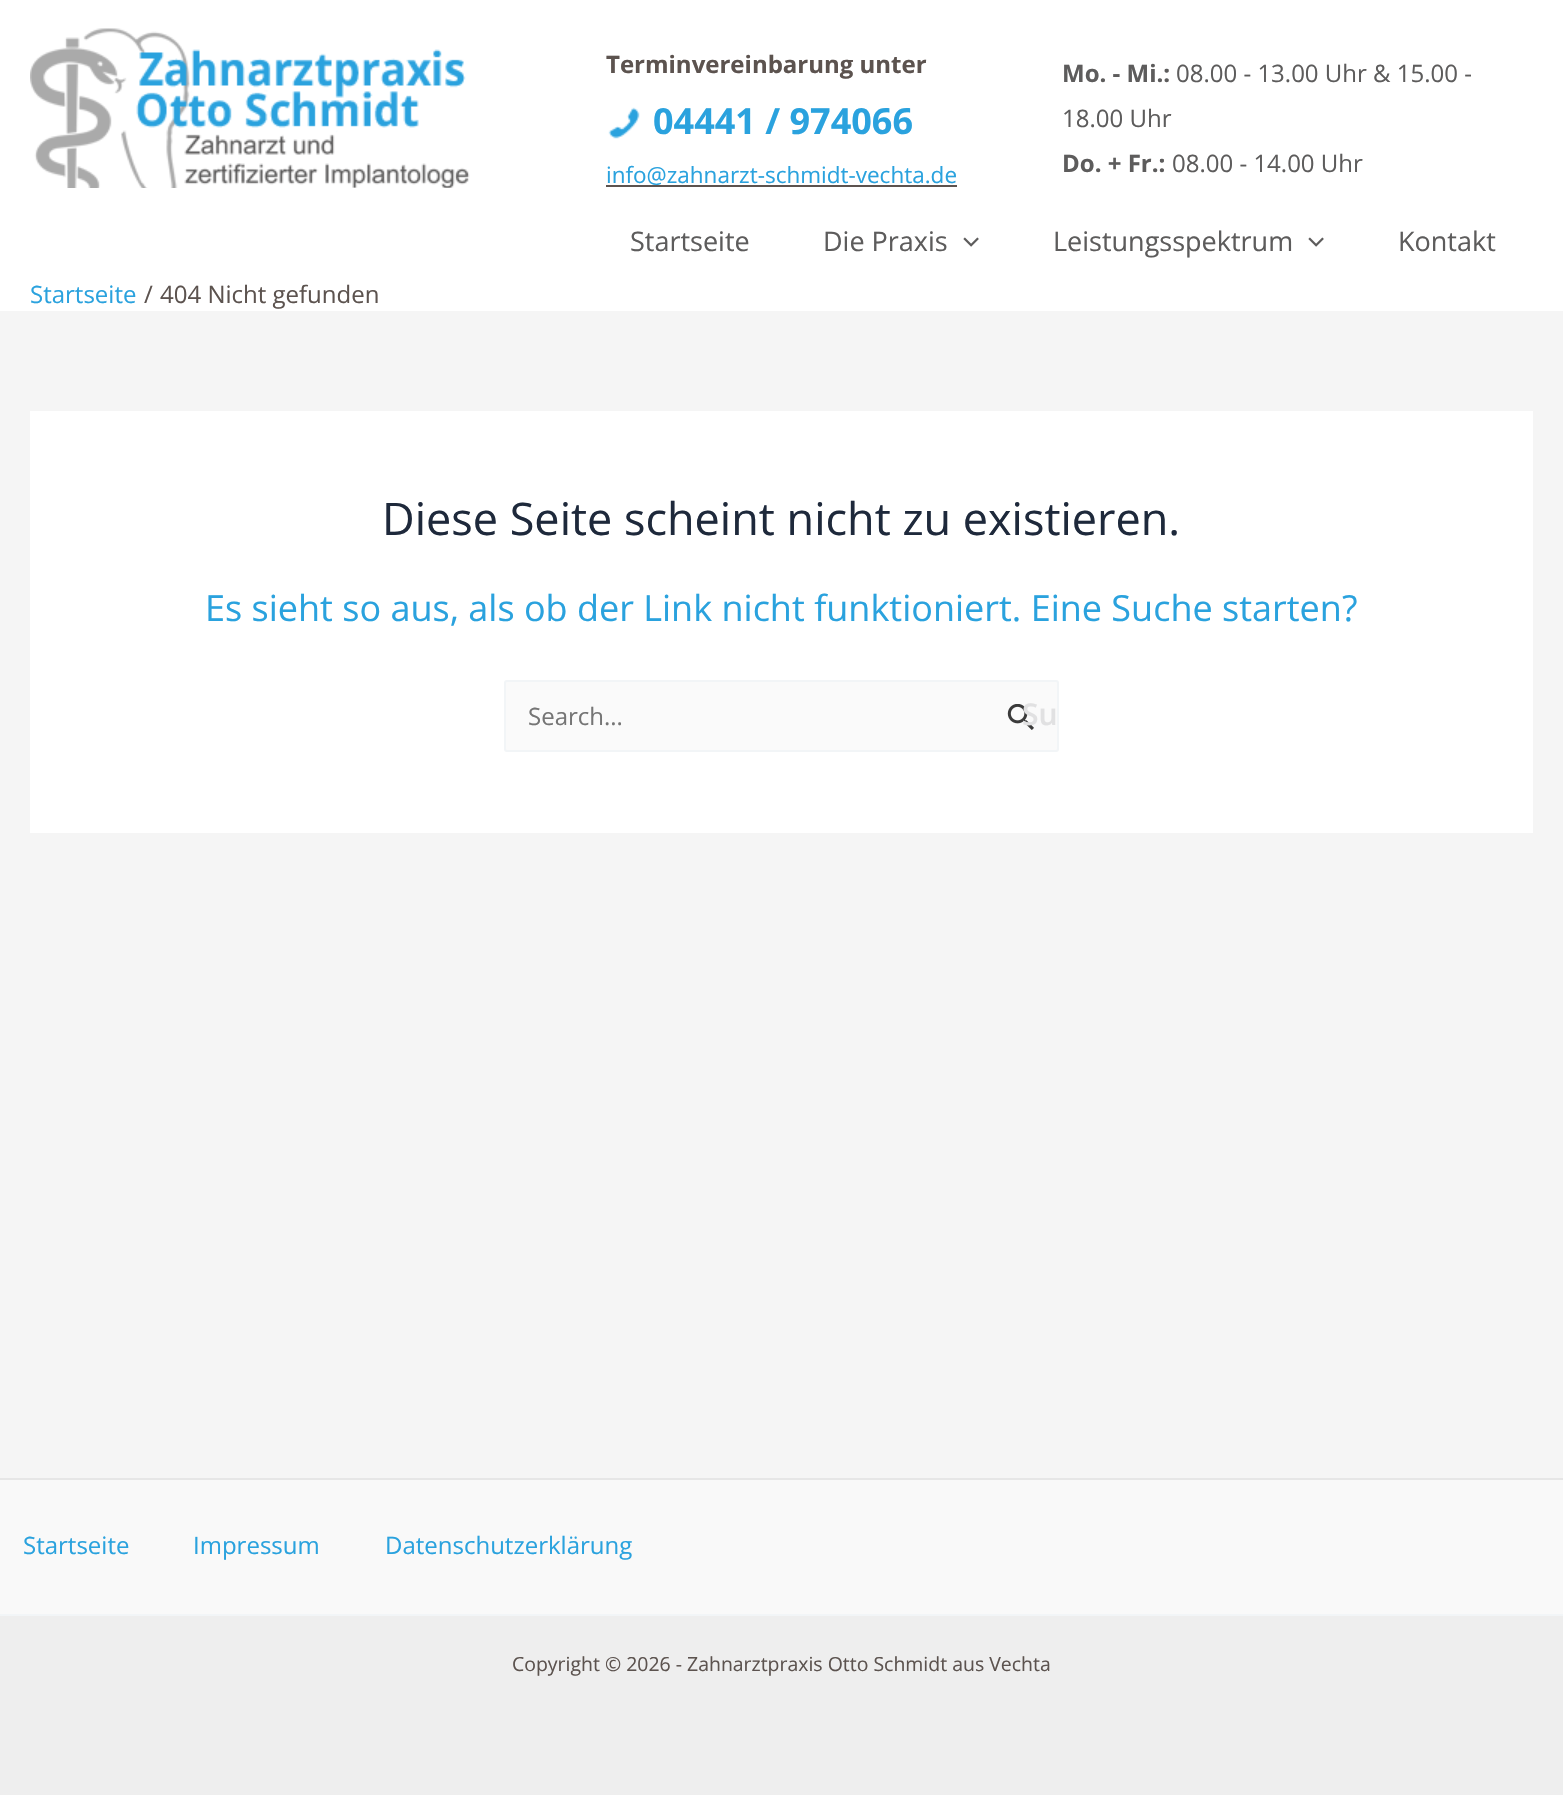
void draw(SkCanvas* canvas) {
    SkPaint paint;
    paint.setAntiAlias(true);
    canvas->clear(0xFFF5F5F5);
    paint.setColor(0xFFFFFFFF);
    canvas->drawRect(SkRect::MakeXYWH(0, 0, 1563, 311), paint);
    canvas->drawImageRect(SkImages::DeferredFromEncodedData(SkData::MakeFromFileName("img1.png")), SkRect::MakeXYWH(30, 28, 440, 160), SkSamplingOptions());
    SkFont font1(fontMgr->matchFamilyStyle("Open Sans", SkFontStyle::Bold()), 24);
    font1.setSubpixel(true);
    paint.setColor(0xFF5C534F);
    canvas->drawString("Terminvereinbarung unter", 606, 73, font1, paint);
    canvas->drawImageRect(SkImages::DeferredFromEncodedData(SkData::MakeFromFileName("img2.png")), SkRect::MakeXYWH(608, 107, 32, 32), SkSamplingOptions());
    SkFont font2(fontMgr->matchFamilyStyle("Open Sans", SkFontStyle::Bold()), 36);
    font2.setSubpixel(true);
    paint.setColor(0xFF2AA2DE);
    canvas->drawString("04441 / 974066", 653, 134, font2, paint);
    SkFont font3(fontMgr->matchFamilyStyle("Open Sans", SkFontStyle::Normal()), 22.5f);
    font3.setSubpixel(true);
    canvas->drawString("info@zahnarzt-schmidt-vechta.de", 606, 183, font3, paint);
    paint.setColor(0xFF5C534F);
    canvas->drawRect(SkRect::MakeXYWH(606, 185, 351, 2), paint);
    paint.setColor(0xFF5D5C5C);
    canvas->drawString("Mo. - Mi.:", 1062, 82, font1, paint);
    SkFont font4(fontMgr->matchFamilyStyle("Open Sans", SkFontStyle::Normal()), 24);
    font4.setSubpixel(true);
    canvas->drawString("08.00 - 13.00 Uhr & 15.00 -", 1176, 82, font4, paint);
    canvas->drawString("18.00 Uhr", 1062, 127, font4, paint);
    canvas->drawString("Do. + Fr.:", 1062, 172, font1, paint);
    canvas->drawString("08.00 - 14.00 Uhr", 1172, 172, font4, paint);
    SkFont font5(fontMgr->matchFamilyStyle("Open Sans", SkFontStyle::Normal()), 27);
    font5.setSubpixel(true);
    canvas->drawString("Startseite", 630, 251, font5, paint);
    canvas->drawString("Die Praxis", 823, 251, font5, paint);
    canvas->drawImageRect(SkImages::DeferredFromEncodedData(SkData::MakeFromFileName("img3.png")), SkRect::MakeXYWH(963, 237, 16, 10), SkSamplingOptions());
    canvas->drawString("Leistungsspektrum", 1053, 251, font5, paint);
    canvas->drawImageRect(SkImages::DeferredFromEncodedData(SkData::MakeFromFileName("img3.png")), SkRect::MakeXYWH(1308, 237, 16, 10), SkSamplingOptions());
    canvas->drawString("Kontakt", 1398, 251, font5, paint);
    paint.setColor(0xFF2AA2DE);
    canvas->drawString("Startseite", 30, 303, font4, paint);
    paint.setColor(0xFF5C534F);
    canvas->drawString("/", 144, 303, font4, paint);
    canvas->drawString("404 Nicht gefunden", 160, 303, font4, paint);
    paint.setColor(0xFFFFFFFF);
    canvas->drawRect(SkRect::MakeXYWH(30, 411, 1503, 422), paint);
    SkFont font6(fontMgr->matchFamilyStyle("Open Sans", SkFontStyle::Normal()), 45);
    font6.setSubpixel(true);
    paint.setColor(0xFF1E293B);
    canvas->drawString("Diese Seite scheint nicht zu existieren.", 382, 535, font6, paint);
    SkFont font7(fontMgr->matchFamilyStyle("Open Sans", SkFontStyle::Normal()), 36);
    font7.setSubpixel(true);
    paint.setColor(0xFF2AA2DE);
    canvas->drawString("Es sieht so aus, als ob der Link nicht funktioniert. Eine Suche starten?", 205, 621, font7, paint);
    paint.setColor(0xFFFAFAFA);
    canvas->drawRoundRect(SkRect::MakeXYWH(505, 681, 553, 70), 2, 2, paint);
    paint.setStyle(SkPaint::kStroke_Style);
    paint.setStrokeWidth(2);
    paint.setColor(0xFFF2F5F7);
    canvas->drawRoundRect(SkRect::MakeXYWH(505, 681, 553, 70), 2, 2, paint);
    paint.setStyle(SkPaint::kFill_Style);
    paint.setColor(0xFF757575);
    canvas->drawString("Search...", 528, 725, font4, paint);
    canvas->drawImageRect(SkImages::DeferredFromEncodedData(SkData::MakeFromFileName("img4.png")), SkRect::MakeXYWH(1007, 704, 27, 26), SkSamplingOptions());
    SkFont font8(fontMgr->matchFamilyStyle("Open Sans", SkFontStyle(600, SkFontStyle::kNormal_Width, SkFontStyle::kUpright_Slant)), 30);
    font8.setSubpixel(true);
    paint.setColor(0xFFE1E1E2);
    canvas->drawString("Su", 1022, 725, font8, paint);
    paint.setColor(0xFFF9F9F9);
    canvas->drawRect(SkRect::MakeXYWH(0, 1480, 1563, 134), paint);
    paint.setColor(0xFFE6E6E6);
    canvas->drawRect(SkRect::MakeXYWH(0, 1478, 1563, 2), paint);
    paint.setColor(0xFF2AA2DE);
    canvas->drawString("Startseite", 23, 1554, font4, paint);
    canvas->drawString("Impressum", 193, 1554, font4, paint);
    canvas->drawString("Datenschutzerklärung", 385, 1554, font4, paint);
    paint.setColor(0xFFEEEEEE);
    canvas->drawRect(SkRect::MakeXYWH(0, 1616, 1563, 179), paint);
    paint.setColor(0xFFF2F5F7);
    canvas->drawRect(SkRect::MakeXYWH(0, 1614, 1563, 2), paint);
    SkFont font9(fontMgr->matchFamilyStyle("Open Sans", SkFontStyle::Normal()), 19.45f);
    font9.setSubpixel(true);
    paint.setColor(0xFF5C534F);
    canvas->drawString("Copyright © 2026 - Zahnarztpraxis Otto Schmidt aus Vechta", 512, 1671, font9, paint);
}
